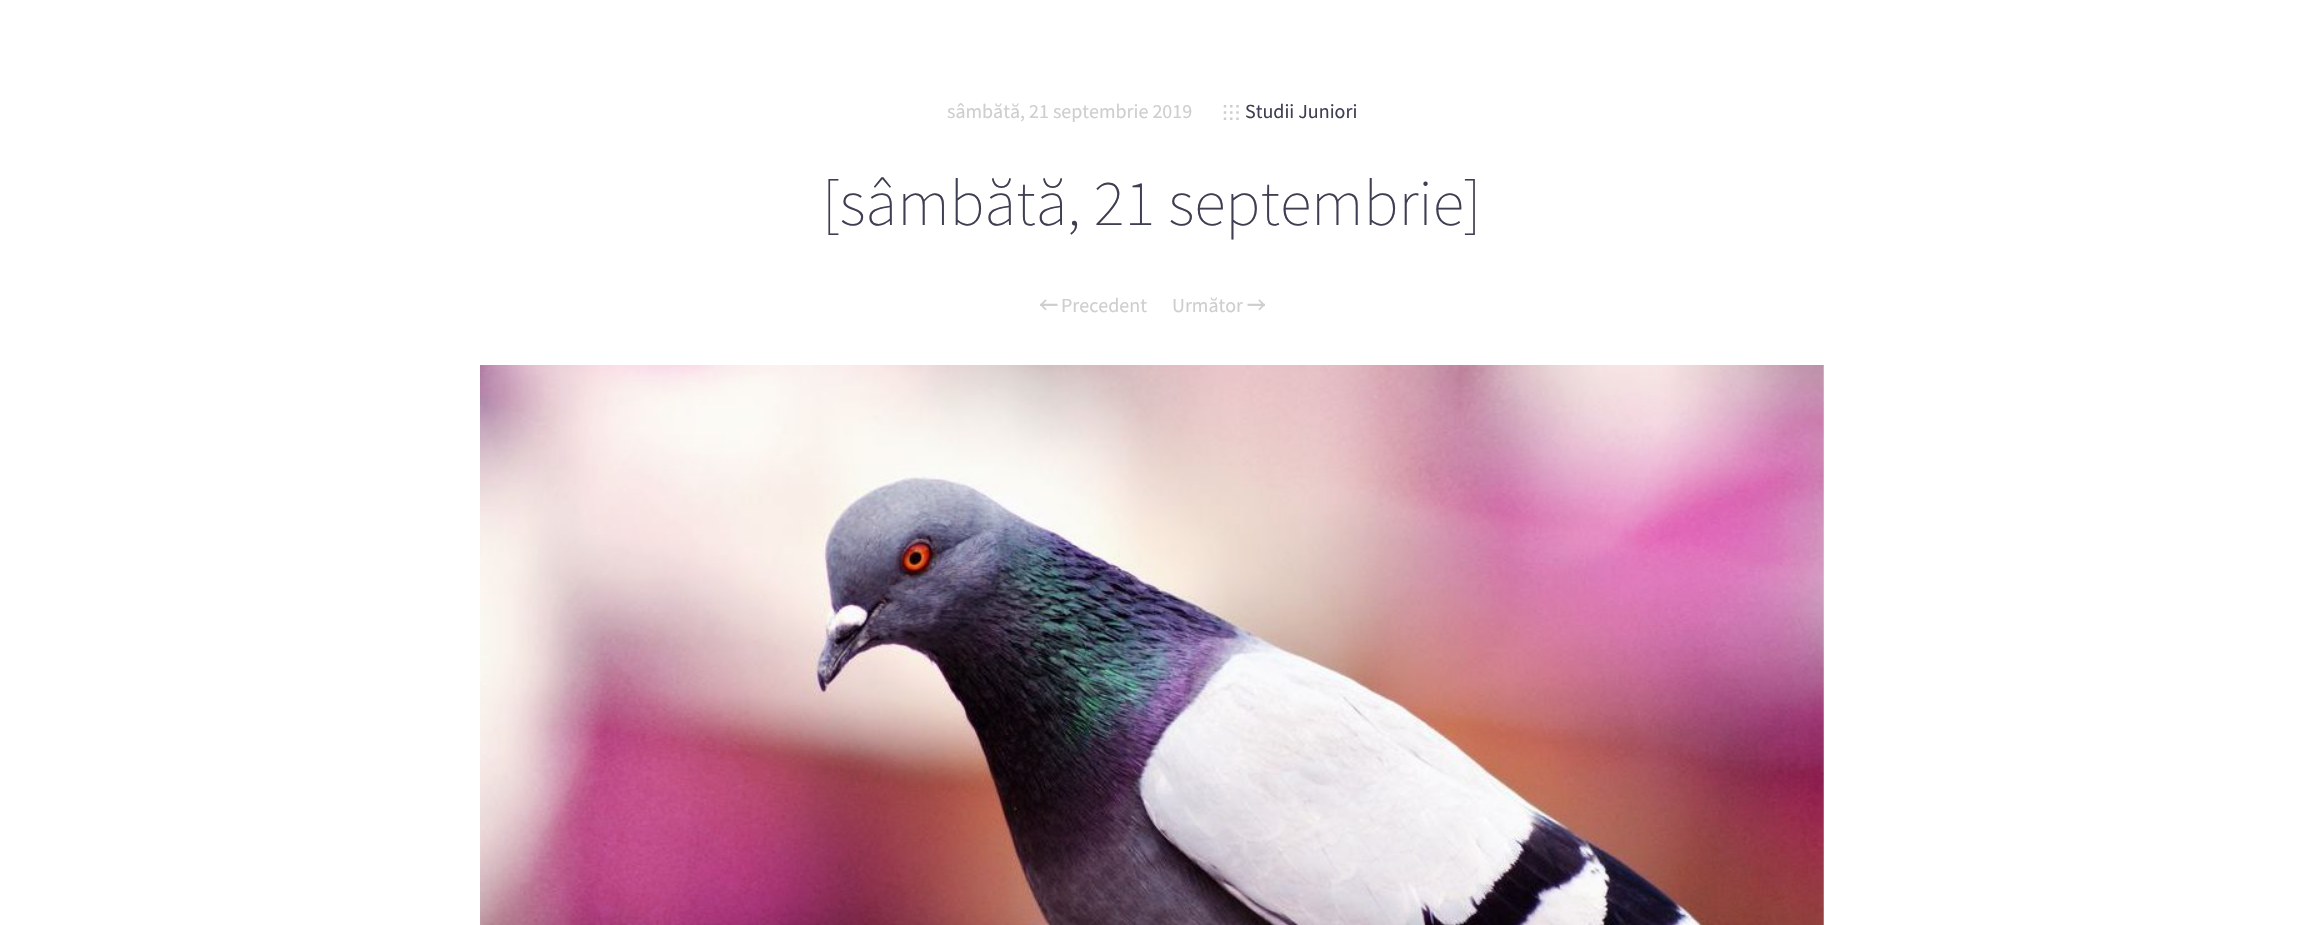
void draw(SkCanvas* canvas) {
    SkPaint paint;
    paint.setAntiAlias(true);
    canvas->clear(0xFFFFFFFF);
    SkFont font1(fontMgr->matchFamilyStyle("Source Sans Pro", SkFontStyle::Normal()), 20);
    font1.setSubpixel(true);
    paint.setColor(0xFFCECECE);
    canvas->drawString("sâmbătă, 21 septembrie 2019", 947, 118, font1, paint);
    canvas->drawImageRect(SkImages::DeferredFromEncodedData(SkData::MakeFromFileName("img1.png")), SkRect::MakeXYWH(1223, 105, 16, 15), SkSamplingOptions());
    paint.setColor(0xFF3F3F53);
    canvas->drawString("Studii Juniori", 1245, 118, font1, paint);
    SkFont font2(fontMgr->matchFamilyStyle("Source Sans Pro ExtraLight", SkFontStyle(200, SkFontStyle::kNormal_Width, SkFontStyle::kUpright_Slant)), 65);
    font2.setSubpixel(true);
    canvas->drawString("[sâmbătă, 21 septembrie]", 822, 225, font2, paint);
    canvas->drawImageRect(SkImages::DeferredFromEncodedData(SkData::MakeFromFileName("img2.png")), SkRect::MakeXYWH(1040, 299, 18, 12), SkSamplingOptions());
    paint.setColor(0xFFCECECE);
    canvas->drawString("Precedent", 1061, 312, font1, paint);
    canvas->drawString("Următor", 1172, 312, font1, paint);
    canvas->drawImageRect(SkImages::DeferredFromEncodedData(SkData::MakeFromFileName("img3.png")), SkRect::MakeXYWH(1247, 299, 18, 12), SkSamplingOptions());
    canvas->drawImageRect(SkImages::DeferredFromEncodedData(SkData::MakeFromFileName("img4.png")), SkRect::MakeXYWH(480, 365, 1344, 560), SkSamplingOptions());
}
